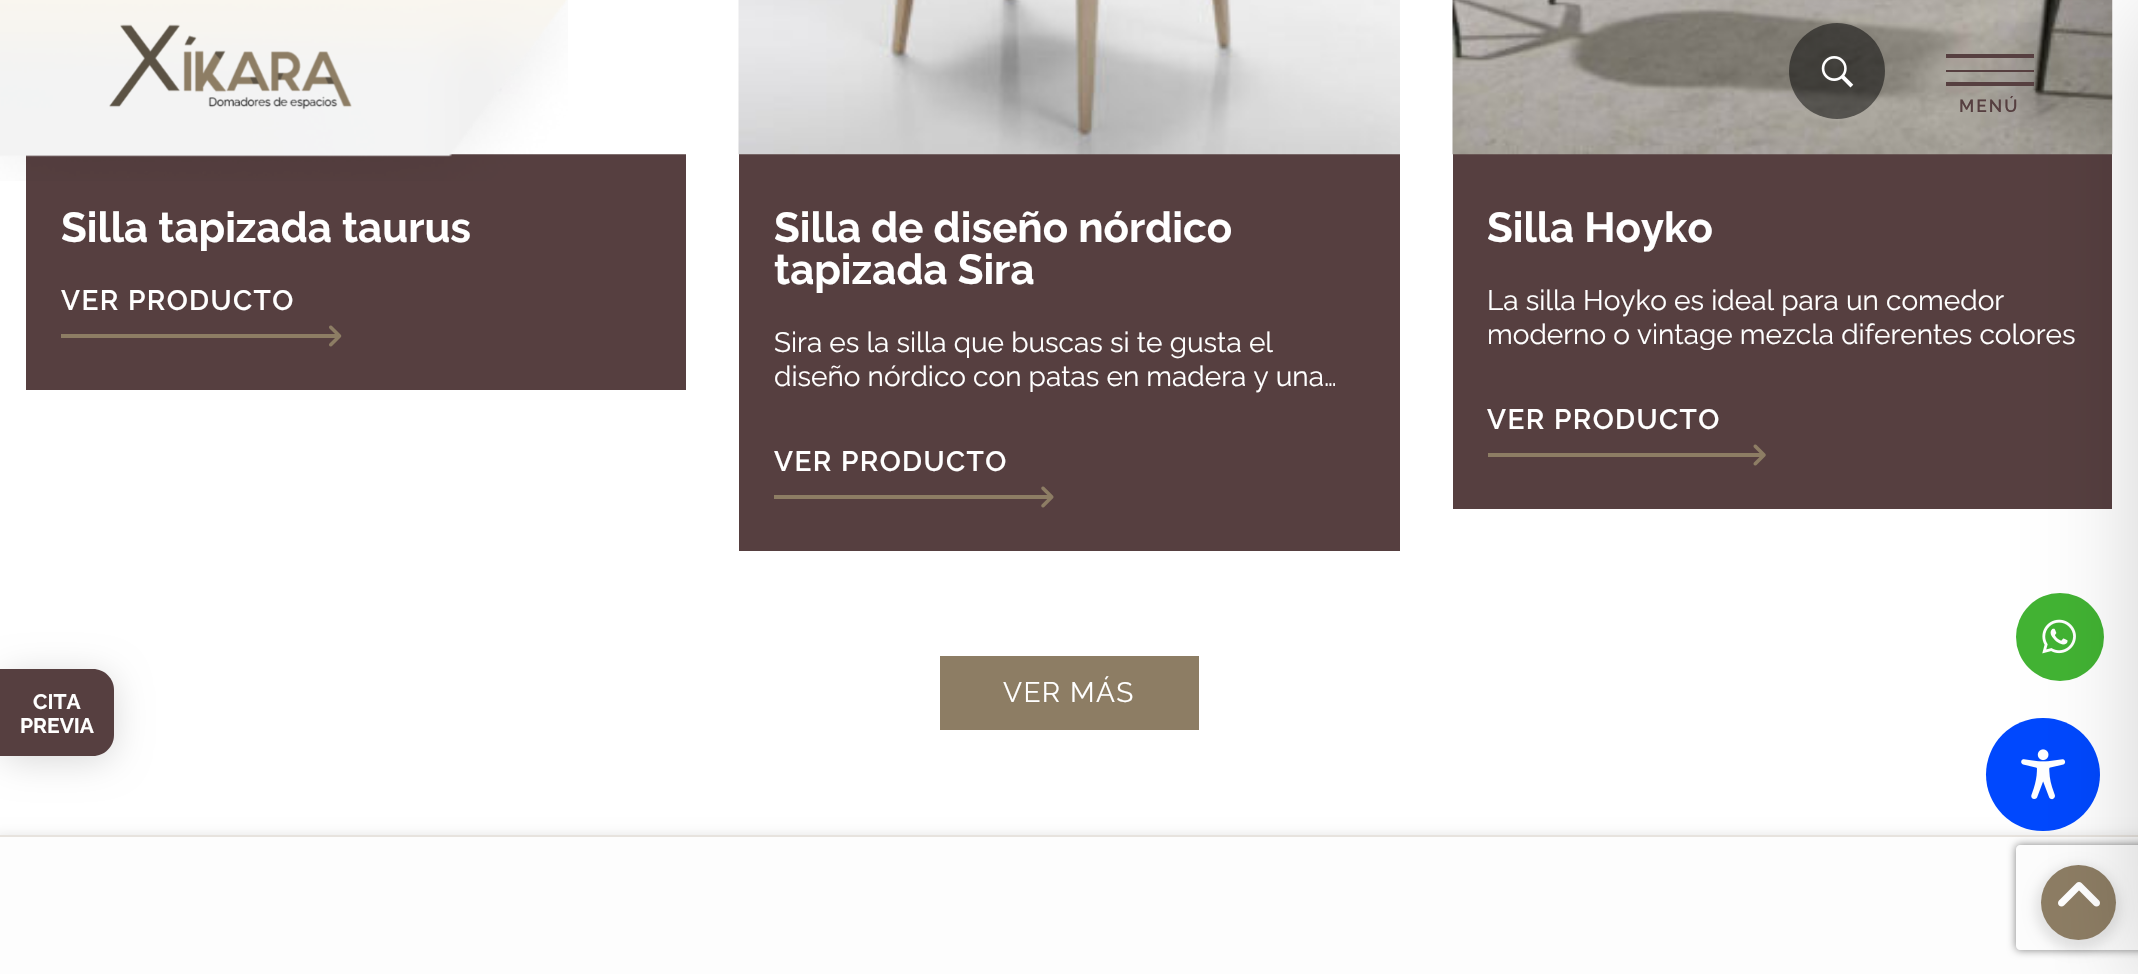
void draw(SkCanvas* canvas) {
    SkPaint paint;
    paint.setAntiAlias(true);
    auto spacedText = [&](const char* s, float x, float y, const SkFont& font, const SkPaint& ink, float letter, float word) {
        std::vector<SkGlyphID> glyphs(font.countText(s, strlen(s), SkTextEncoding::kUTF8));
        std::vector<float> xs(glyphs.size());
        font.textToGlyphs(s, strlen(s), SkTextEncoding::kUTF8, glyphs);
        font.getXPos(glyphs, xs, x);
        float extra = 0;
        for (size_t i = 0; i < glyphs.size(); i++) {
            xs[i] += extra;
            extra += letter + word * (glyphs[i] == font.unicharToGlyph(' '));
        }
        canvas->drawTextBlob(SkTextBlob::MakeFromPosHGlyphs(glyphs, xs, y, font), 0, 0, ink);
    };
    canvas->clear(0xFFFFFFFF);
    paint.setColor(0xFF563F40);
    canvas->drawRect(SkRect::MakeXYWH(1453, 154, 659, 355), paint);
    canvas->drawImageRect(SkImages::DeferredFromEncodedData(SkData::MakeFromFileName("img8.png")), SkRect::MakeXYWH(1452, 0, 661, 155), SkSamplingOptions());
    canvas->drawRect(SkRect::MakeXYWH(1946, 70, 88, 2), paint);
    canvas->drawRect(SkRect::MakeXYWH(1946, 54, 88, 4), paint);
    canvas->drawRect(SkRect::MakeXYWH(1946, 82, 88, 4), paint);
    paint.setColor(0x1A000000);
    paint.setMaskFilter(SkMaskFilter::MakeBlur(kNormal_SkBlurStyle, 6));
    canvas->drawRect(SkRect::MakeXYWH(-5, 835, 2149, 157), paint);
    paint.setMaskFilter(nullptr);
    paint.setColor(0xFFFDFDFD);
    canvas->drawRect(SkRect::MakeXYWH(0, 837, 2138, 137), paint);
    paint.setColor(0xFFE7E3DE);
    canvas->drawRect(SkRect::MakeXYWH(0, 835, 2138, 2), paint);
    paint.setColor(0xFF42B333);
    canvas->drawCircle(2060, 637, 44, paint);
    canvas->drawImageRect(SkImages::DeferredFromEncodedData(SkData::MakeFromFileName("img10.png")), SkRect::MakeXYWH(2042, 619, 34, 35), SkSamplingOptions());
    canvas->save();
    canvas->clipPath(SkPathBuilder(SkPathFillType::kEvenOdd).moveTo(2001, 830).lineTo(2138, 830).lineTo(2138, 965).lineTo(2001, 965).close().moveTo(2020, 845).lineTo(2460, 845).cubicTo(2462, 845, 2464, 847, 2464, 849).lineTo(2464, 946).cubicTo(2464, 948, 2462, 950, 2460, 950).lineTo(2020, 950).cubicTo(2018, 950, 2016, 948, 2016, 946).lineTo(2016, 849).cubicTo(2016, 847, 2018, 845, 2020, 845).close().detach(), true);
    paint.setColor(0xFF808080);
    paint.setMaskFilter(SkMaskFilter::MakeBlur(kNormal_SkBlurStyle, 4.5f));
    canvas->drawRoundRect(SkRect::MakeXYWH(2016, 845, 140, 105), 4, 4, paint);
    paint.setMaskFilter(nullptr);
    canvas->restore();
    paint.setColor(0xFF0048FE);
    canvas->drawRoundRect(SkRect::MakeXYWH(1986, 718, 114, 113), 56.5f, 56.5f, paint);
    canvas->drawImageRect(SkImages::DeferredFromEncodedData(SkData::MakeFromFileName("img11.png")), SkRect::MakeXYWH(2021, 749, 45, 51), SkSamplingOptions());
    paint.setColor(0x1A000000);
    paint.setMaskFilter(SkMaskFilter::MakeBlur(kNormal_SkBlurStyle, 6));
    canvas->drawRoundRect(SkRect::MakeXYWH(2035, 865, 86, 85), 42.5f, 42.5f, paint);
    paint.setMaskFilter(nullptr);
    paint.setColor(0xFF8D7D64);
    canvas->drawCircle(2078.5f, 902.5f, 37.5f, paint);
    canvas->drawImageRect(SkImages::DeferredFromEncodedData(SkData::MakeFromFileName("img12.png")), SkRect::MakeXYWH(2058, 882, 42, 25), SkSamplingOptions());
    paint.setColor(0x33000000);
    paint.setMaskFilter(SkMaskFilter::MakeBlur(kNormal_SkBlurStyle, 52.5f));
    canvas->drawRect(SkRect::MakeXYWH(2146, 18, 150, 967), paint);
    paint.setMaskFilter(nullptr);
    paint.setColor(0xFF563F40);
    canvas->drawRect(SkRect::MakeXYWH(26, 154, 660, 236), paint);
    canvas->drawImageRect(SkImages::DeferredFromEncodedData(SkData::MakeFromFileName("img4.png")), SkRect::MakeXYWH(449, 0, 237, 155), SkSamplingOptions());
    canvas->drawImageRect(SkImages::DeferredFromEncodedData(SkData::MakeFromFileName("img1.png")), SkRect::MakeXYWH(0, 0, 568, 181), SkSamplingOptions());
    canvas->drawImageRect(SkImages::DeferredFromEncodedData(SkData::MakeFromFileName("img2.png")), SkRect::MakeXYWH(109, 24, 243, 86), SkSamplingOptions());
    paint.setColor(0x80000000);
    canvas->drawCircle(1837, 71, 48, paint);
    canvas->drawImageRect(SkImages::DeferredFromEncodedData(SkData::MakeFromFileName("img3.png")), SkRect::MakeXYWH(1821, 56, 33, 32), SkSamplingOptions());
    SkFont font1(fontMgr->matchFamilyStyle("Raleway", SkFontStyle(600, SkFontStyle::kNormal_Width, SkFontStyle::kUpright_Slant)), 17.5f);
    font1.setSubpixel(true);
    paint.setColor(0xFF563F40);
    spacedText("MENÚ", 1959, 112, font1, paint, 2, 0);
    SkFont font2(fontMgr->matchFamilyStyle("Raleway", SkFontStyle::Bold()), 42);
    font2.setSubpixel(true);
    paint.setColor(0xFFFFFFFF);
    canvas->drawString("Silla tapizada taurus", 61, 242, font2, paint);
    paint.setColor(0xFF8D7D64);
    canvas->drawRect(SkRect::MakeXYWH(61, 334, 279, 4), paint);
    SkFont font3(fontMgr->matchFamilyStyle("Raleway", SkFontStyle(600, SkFontStyle::kNormal_Width, SkFontStyle::kUpright_Slant)), 28);
    font3.setSubpixel(true);
    paint.setColor(0xFFFFFFFF);
    spacedText("VER PRODUCTO", 61, 310, font3, paint, 1.4f, 0);
    canvas->drawImageRect(SkImages::DeferredFromEncodedData(SkData::MakeFromFileName("img5.png")), SkRect::MakeXYWH(329, 325, 13, 22), SkSamplingOptions());
    paint.setColor(0xFF563F40);
    canvas->drawRect(SkRect::MakeXYWH(739, 154, 661, 397), paint);
    canvas->drawImageRect(SkImages::DeferredFromEncodedData(SkData::MakeFromFileName("img6.png")), SkRect::MakeXYWH(738, 0, 662, 155), SkSamplingOptions());
    paint.setColor(0xFFFFFFFF);
    canvas->drawString("Silla de diseño nórdico", 774, 242, font2, paint);
    canvas->drawString("tapizada Sira", 774, 284, font2, paint);
    SkFont font4(fontMgr->matchFamilyStyle("Raleway", SkFontStyle::Normal()), 28);
    font4.setSubpixel(true);
    canvas->drawString("Sira es la silla que buscas si te gusta el", 774, 352, font4, paint);
    canvas->drawString("diseño nórdico con patas en madera y una…", 774, 386, font4, paint);
    paint.setColor(0xFF8D7D64);
    canvas->drawRect(SkRect::MakeXYWH(774, 495, 278, 4), paint);
    paint.setColor(0xFFFFFFFF);
    spacedText("VER PRODUCTO", 774, 471, font3, paint, 1.4f, 0);
    canvas->drawImageRect(SkImages::DeferredFromEncodedData(SkData::MakeFromFileName("img7.png")), SkRect::MakeXYWH(1041, 486, 13, 22), SkSamplingOptions());
    canvas->drawString("Silla Hoyko", 1487, 242, font2, paint);
    canvas->drawString("La silla Hoyko es ideal para un comedor", 1487, 310, font4, paint);
    canvas->save();
    canvas->clipRect(SkRect::MakeXYWH(1488, 284, 589, 66));
    canvas->drawString("moderno o vintage mezcla diferentes colores", 1487, 344, font4, paint);
    canvas->restore();
    paint.setColor(0xFF8D7D64);
    canvas->drawRect(SkRect::MakeXYWH(1488, 453, 276, 4), paint);
    paint.setColor(0xFFFFFFFF);
    spacedText("VER PRODUCTO", 1487, 429, font3, paint, 1.4f, 0);
    canvas->drawImageRect(SkImages::DeferredFromEncodedData(SkData::MakeFromFileName("img9.png")), SkRect::MakeXYWH(1753, 444, 13, 22), SkSamplingOptions());
    paint.setColor(0xFF8D7D64);
    canvas->drawRect(SkRect::MakeXYWH(940, 656, 259, 74), paint);
    paint.setColor(0xFFFFFFFF);
    spacedText("VER MÁS", 1003, 702, font4, paint, 1.4f, 0);
    paint.setColor(0x26000000);
    paint.setMaskFilter(SkMaskFilter::MakeBlur(kNormal_SkBlurStyle, 17.5f));
    canvas->drawRoundRect(SkRect::MakeXYWH(0, 674, 114, 87), 21, 21, paint);
    paint.setMaskFilter(nullptr);
    paint.setColor(0xFF563F40);
    canvas->drawPath(SkPathBuilder().moveTo(0, 669).lineTo(93, 669).cubicTo(104.5f, 669, 114, 678.5f, 114, 690).lineTo(114, 735).cubicTo(114, 746.5f, 104.5f, 756, 93, 756).lineTo(0, 756).close().detach(), paint);
    SkFont font5(fontMgr->matchFamilyStyle("Raleway", SkFontStyle::Bold()), 21);
    font5.setSubpixel(true);
    paint.setColor(0xFFFFFFFF);
    canvas->drawString("CITA", 33, 709, font5, paint);
    canvas->drawString("PREVIA", 20, 733, font5, paint);
}
